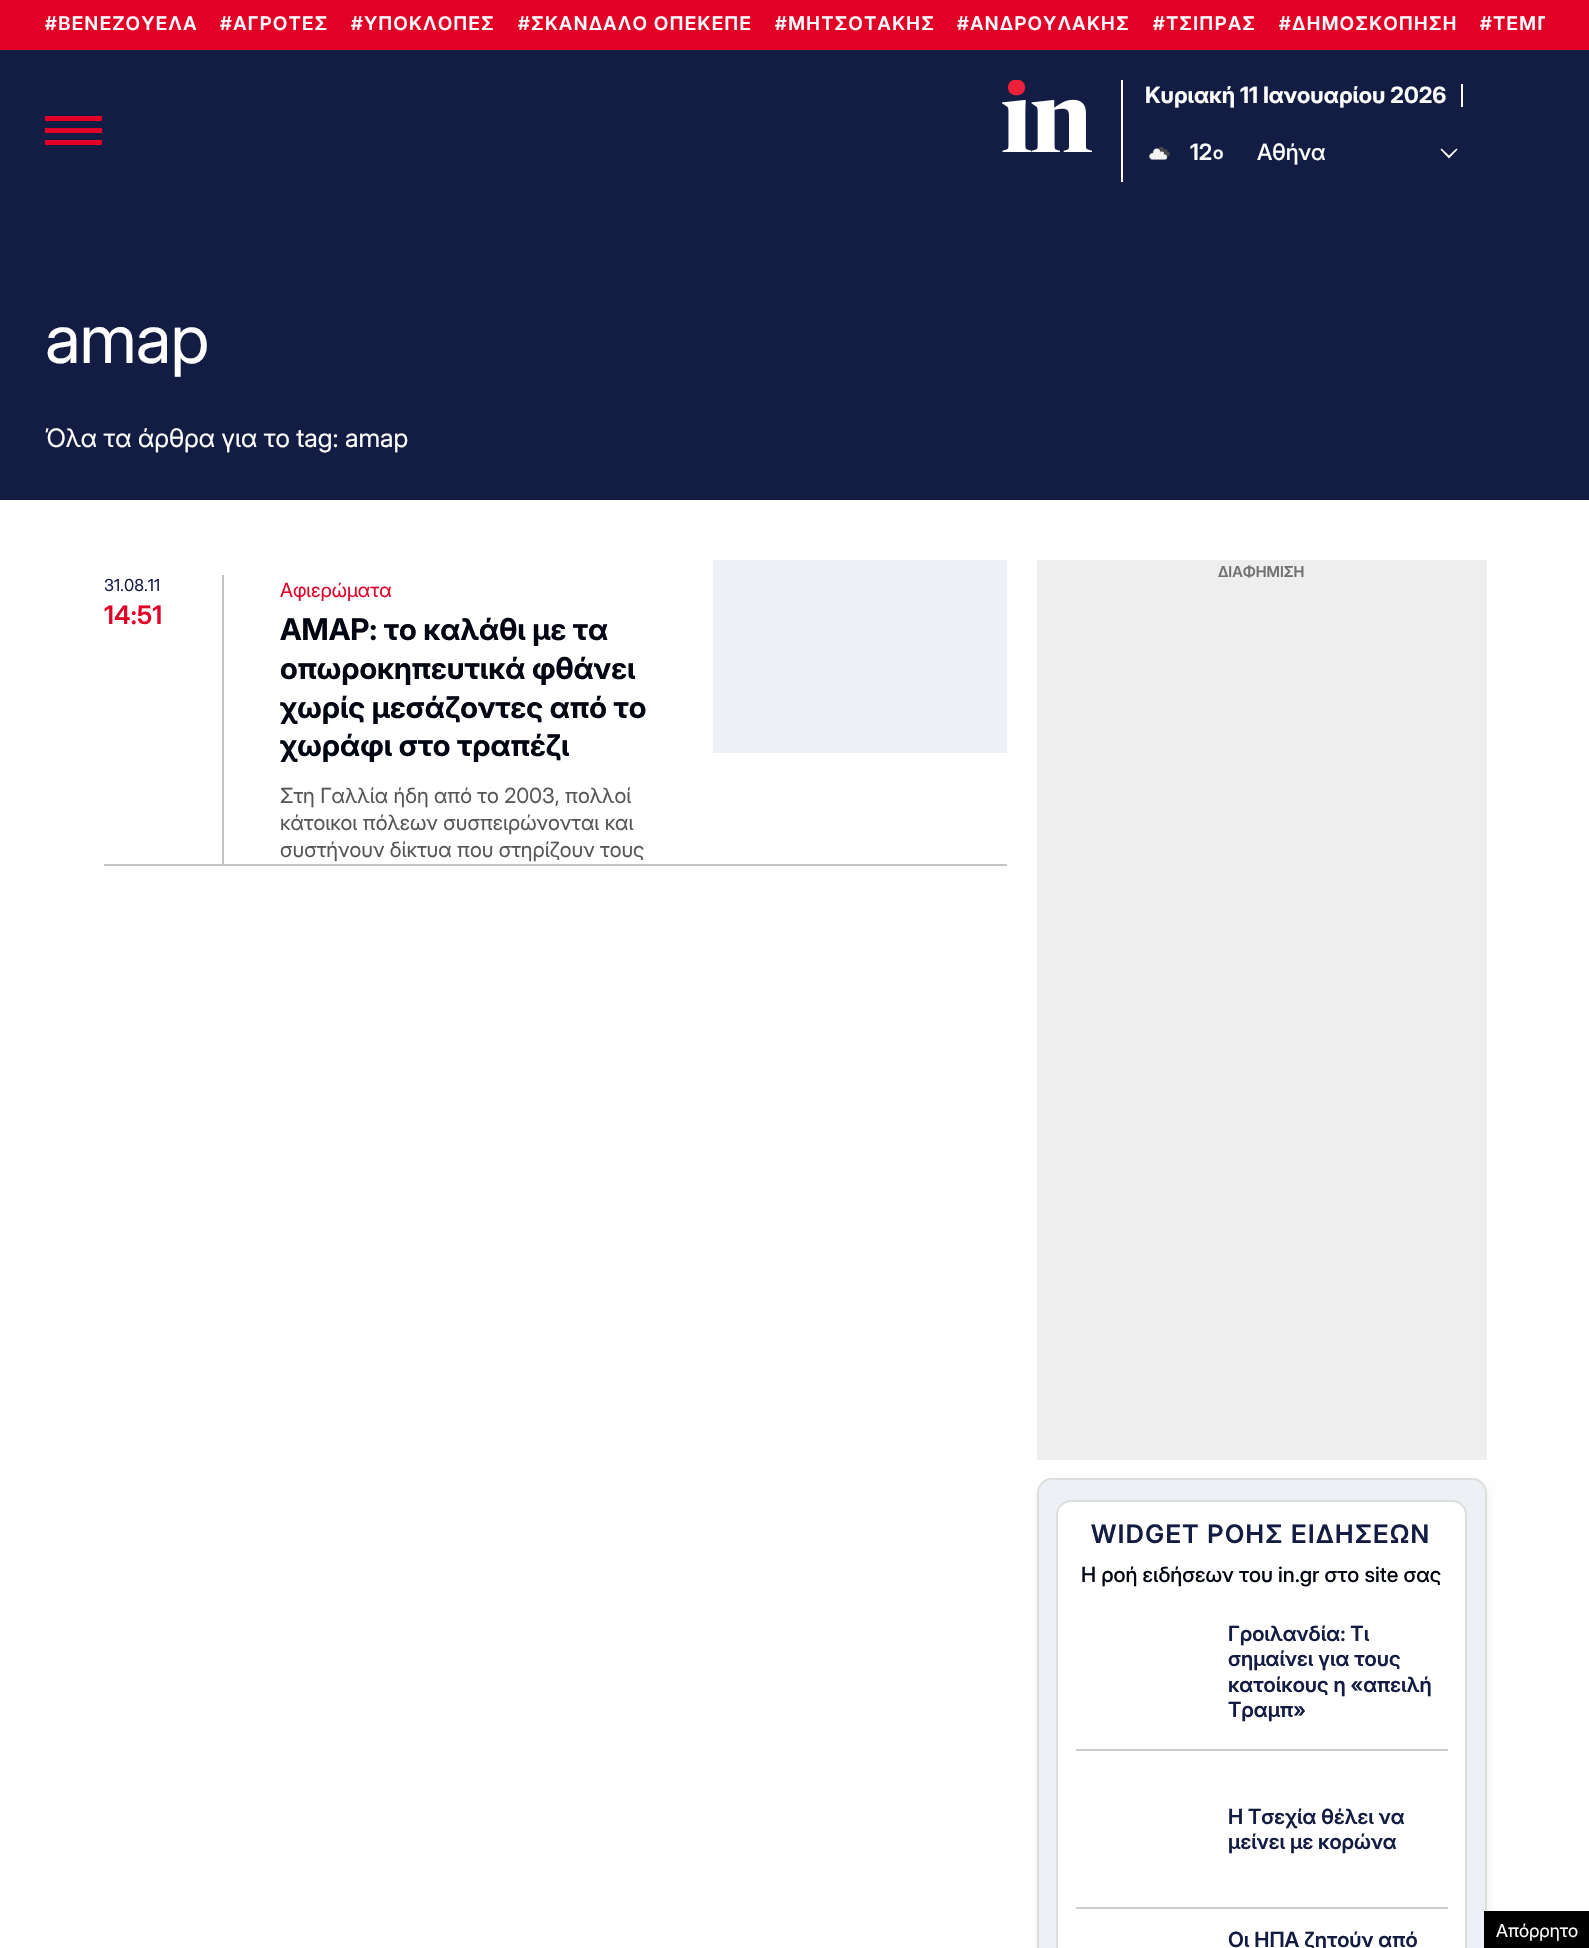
void draw(SkCanvas* canvas) {
    SkPaint paint;
    paint.setAntiAlias(true);
    auto spacedText = [&](const char* s, float x, float y, const SkFont& font, const SkPaint& ink, float letter, float word) {
        std::vector<SkGlyphID> glyphs(font.countText(s, strlen(s), SkTextEncoding::kUTF8));
        std::vector<float> xs(glyphs.size());
        font.textToGlyphs(s, strlen(s), SkTextEncoding::kUTF8, glyphs);
        font.getXPos(glyphs, xs, x);
        float extra = 0;
        for (size_t i = 0; i < glyphs.size(); i++) {
            xs[i] += extra;
            extra += letter + word * (glyphs[i] == font.unicharToGlyph(' '));
        }
        canvas->drawTextBlob(SkTextBlob::MakeFromPosHGlyphs(glyphs, xs, y, font), 0, 0, ink);
    };
    canvas->clear(0xFFFFFFFF);
    paint.setColor(0xFFE20026);
    canvas->drawRect(SkRect::MakeXYWH(0, 0, 1589, 50), paint);
    SkFont font1(fontMgr->matchFamilyStyle("Inter", SkFontStyle(600, SkFontStyle::kNormal_Width, SkFontStyle::kUpright_Slant)), 18.75f);
    font1.setSubpixel(true);
    paint.setColor(0xFFFFFFFF);
    spacedText("#ΒΕΝΕΖΟΥΕΛΑ", 45, 30, font1, paint, 1.5f, 0);
    spacedText("#ΑΓΡΟΤΕΣ", 220, 30, font1, paint, 1.5f, 0);
    spacedText("#ΥΠΟΚΛΟΠΕΣ", 351, 30, font1, paint, 1.5f, 0);
    spacedText("#ΣΚΑΝΔΑΛΟ ΟΠΕΚΕΠΕ", 518, 30, font1, paint, 1.5f, 0);
    spacedText("#ΜΗΤΣΟΤΑΚΗΣ", 775, 30, font1, paint, 1.5f, 0);
    spacedText("#ΑΝΔΡΟΥΛΑΚΗΣ", 957, 30, font1, paint, 1.5f, 0);
    spacedText("#ΤΣΙΠΡΑΣ", 1153, 30, font1, paint, 1.5f, 0);
    spacedText("#ΔΗΜΟΣΚΟΠΗΣΗ", 1279, 30, font1, paint, 1.5f, 0);
    canvas->save();
    canvas->clipRect(SkRect::MakeXYWH(45, 14, 1500, 22));
    spacedText("#ΤΕΜΠ", 1480, 30, font1, paint, 1.5f, 0);
    canvas->restore();
    paint.setColor(0xFF131C42);
    canvas->drawRect(SkRect::MakeXYWH(0, 50, 1589, 450), paint);
    paint.setColor(0xFFE20026);
    canvas->drawRect(SkRect::MakeXYWH(45, 116, 57, 5), paint);
    canvas->drawRect(SkRect::MakeXYWH(45, 128, 57, 5), paint);
    canvas->drawRect(SkRect::MakeXYWH(45, 140, 57, 5), paint);
    canvas->drawImageRect(SkImages::DeferredFromEncodedData(SkData::MakeFromFileName("img1.png")), SkRect::MakeXYWH(1002, 80, 90, 72), SkSamplingOptions());
    paint.setColor(0xFFFFFFFF);
    canvas->drawRect(SkRect::MakeXYWH(1121, 80, 2, 102), paint);
    SkFont font2(fontMgr->matchFamilyStyle("Inter", SkFontStyle::Bold()), 22.5f);
    font2.setSubpixel(true);
    canvas->drawString("Κυριακή 11 Ιανουαρίου 2026", 1145, 103, font2, paint);
    canvas->drawRect(SkRect::MakeXYWH(1461, 84, 2, 23), paint);
    canvas->drawImageRect(SkImages::DeferredFromEncodedData(SkData::MakeFromFileName("img2.png")), SkRect::MakeXYWH(1149, 146, 21, 14), SkSamplingOptions());
    SkFont font3(fontMgr->matchFamilyStyle("Inter", SkFontStyle(600, SkFontStyle::kNormal_Width, SkFontStyle::kUpright_Slant)), 22.5f);
    font3.setSubpixel(true);
    canvas->drawString("12", 1190, 160, font3, paint);
    SkFont font4(fontMgr->matchFamilyStyle("Inter", SkFontStyle(600, SkFontStyle::kNormal_Width, SkFontStyle::kUpright_Slant)), 18);
    font4.setSubpixel(true);
    canvas->drawString("o", 1213, 159, font4, paint);
    SkFont font5(fontMgr->matchFamilyStyle("Inter", SkFontStyle(500, SkFontStyle::kNormal_Width, SkFontStyle::kUpright_Slant)), 22.5f);
    font5.setSubpixel(true);
    canvas->drawString("Αθήνα", 1257, 160, font5, paint);
    canvas->drawPath(SkPathBuilder().moveTo(1449, 158.5f).lineTo(1440.5f, 149.5f).lineTo(1441.5f, 148.5f).lineTo(1449, 155.5f).lineTo(1456.5f, 148.5f).lineTo(1457.5f, 149.5f).close().detach(), paint);
    SkFont font6(fontMgr->matchFamilyStyle("Inter", SkFontStyle::Normal()), 67.5f);
    font6.setSubpixel(true);
    spacedText("amap", 45, 363, font6, paint, -1, 0);
    SkFont font7(fontMgr->matchFamilyStyle("Inter", SkFontStyle::Normal()), 25.5f);
    font7.setSubpixel(true);
    canvas->drawString("Όλα τα άρθρα για το tag: amap", 45, 447, font7, paint);
    paint.setColor(0xFFC4C4C4);
    canvas->drawRect(SkRect::MakeXYWH(104, 864, 903, 2), paint);
    SkFont font8(fontMgr->matchFamilyStyle("Inter", SkFontStyle::Normal()), 16.5f);
    font8.setSubpixel(true);
    paint.setColor(0xFF131C42);
    canvas->drawString("31.08.11", 104, 591, font8, paint);
    SkFont font9(fontMgr->matchFamilyStyle("Inter", SkFontStyle(600, SkFontStyle::kNormal_Width, SkFontStyle::kUpright_Slant)), 25.5f);
    font9.setSubpixel(true);
    paint.setColor(0xFFE20026);
    canvas->drawString("14:51", 104, 624, font9, paint);
    paint.setColor(0xFFC4C4C4);
    canvas->drawRect(SkRect::MakeXYWH(222, 575, 2, 289), paint);
    SkFont font10(fontMgr->matchFamilyStyle("Inter", SkFontStyle::Normal()), 19.5f);
    font10.setSubpixel(true);
    paint.setColor(0xFFE20026);
    canvas->drawString("Αφιερώματα", 280, 597, font10, paint);
    SkFont font11(fontMgr->matchFamilyStyle("Inter", SkFontStyle::Bold()), 30);
    font11.setSubpixel(true);
    paint.setColor(0xFF020512);
    canvas->drawString("AMAP: το καλάθι με τα", 280, 640, font11, paint);
    canvas->drawString("οπωροκηπευτικά φθάνει", 280, 679, font11, paint);
    canvas->drawString("χωρίς μεσάζοντες από το", 280, 718, font11, paint);
    canvas->drawString("χωράφι στο τραπέζι", 280, 756, font11, paint);
    SkFont font12(fontMgr->matchFamilyStyle("Inter", SkFontStyle::Normal()), 21);
    font12.setSubpixel(true);
    paint.setColor(0xFF565656);
    canvas->drawString("Στη Γαλλία ήδη από το 2003, πολλοί", 280, 803, font12, paint);
    canvas->drawString("κάτοικοι πόλεων συσπειρώνονται και", 280, 830, font12, paint);
    canvas->drawString("συστήνουν δίκτυα που στηρίζουν τους", 280, 857, font12, paint);
    paint.setColor(0xFFEDF0F5);
    canvas->drawRect(SkRect::MakeXYWH(713, 560, 294, 193), paint);
    paint.setColor(0xFFEEEEEE);
    canvas->drawRect(SkRect::MakeXYWH(1037, 560, 450, 900), paint);
    SkFont font13(fontMgr->matchFamilyStyle("Inter", SkFontStyle(600, SkFontStyle::kNormal_Width, SkFontStyle::kUpright_Slant)), 15);
    font13.setSubpixel(true);
    paint.setColor(0xFF727272);
    canvas->drawString("ΔΙΑΦΗΜΙΣΗ", 1218, 577, font13, paint);
    paint.setColor(0xFFEEEEEE);
    paint.setMaskFilter(SkMaskFilter::MakeBlur(kNormal_SkBlurStyle, 4.5f));
    canvas->drawRoundRect(SkRect::MakeXYWH(1038, 1482, 450, 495), 15, 15, paint);
    paint.setMaskFilter(nullptr);
    paint.setColor(0xFFEDF0F4);
    canvas->drawRoundRect(SkRect::MakeXYWH(1038, 1479, 448, 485), 14, 14, paint);
    paint.setStyle(SkPaint::kStroke_Style);
    paint.setStrokeWidth(2);
    paint.setColor(0xFFDDDDDD);
    canvas->drawRoundRect(SkRect::MakeXYWH(1038, 1479, 448, 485), 14, 14, paint);
    paint.setStyle(SkPaint::kFill_Style);
    paint.setColor(0xFFFFFFFF);
    canvas->drawRoundRect(SkRect::MakeXYWH(1057, 1501, 409, 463), 14, 14, paint);
    paint.setStyle(SkPaint::kStroke_Style);
    paint.setColor(0xFFDDDDDD);
    canvas->drawRoundRect(SkRect::MakeXYWH(1057, 1501, 409, 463), 14, 14, paint);
    paint.setStyle(SkPaint::kFill_Style);
    paint.setColor(0xFF131C42);
    spacedText("WIDGET ΡΟΗΣ ΕΙΔΗΣΕΩΝ", 1091, 1543, font9, paint, 1.5f, 0);
    SkFont font14(fontMgr->matchFamilyStyle("Inter", SkFontStyle(500, SkFontStyle::kNormal_Width, SkFontStyle::kUpright_Slant)), 21);
    font14.setSubpixel(true);
    paint.setColor(0xFF020512);
    canvas->drawString("Η ροή ειδήσεων του in.gr στο site σας", 1081, 1582, font14, paint);
    paint.setColor(0xFFCCCCCC);
    canvas->drawRect(SkRect::MakeXYWH(1076, 1749, 372, 2), paint);
    SkFont font15(fontMgr->matchFamilyStyle("Inter", SkFontStyle(600, SkFontStyle::kNormal_Width, SkFontStyle::kUpright_Slant)), 21);
    font15.setSubpixel(true);
    paint.setColor(0xFF131C42);
    canvas->drawString("Γροιλανδία: Τι", 1228, 1641, font15, paint);
    canvas->drawString("σημαίνει για τους", 1228, 1666, font15, paint);
    canvas->drawString("κατοίκους η «απειλή", 1228, 1692, font15, paint);
    canvas->drawString("Τραμπ»", 1228, 1717, font15, paint);
    paint.setColor(0xFFCCCCCC);
    canvas->drawRect(SkRect::MakeXYWH(1076, 1907, 372, 2), paint);
    paint.setColor(0xFF131C42);
    canvas->drawString("Η Τσεχία θέλει να", 1228, 1824, font15, paint);
    canvas->drawString("μείνει με κορώνα", 1228, 1849, font15, paint);
    canvas->drawString("Οι ΗΠΑ ζητούν από", 1228, 1947, font15, paint);
    paint.setColor(0xFF000000);
    canvas->drawRect(SkRect::MakeXYWH(1484, 1911, 105, 37), paint);
    SkFont font16(fontMgr->matchFamilyStyle("Inter", SkFontStyle::Normal()), 18);
    font16.setSubpixel(true);
    paint.setColor(0xFFFFFFFF);
    canvas->drawString("Απόρρητο", 1496, 1937, font16, paint);
}
